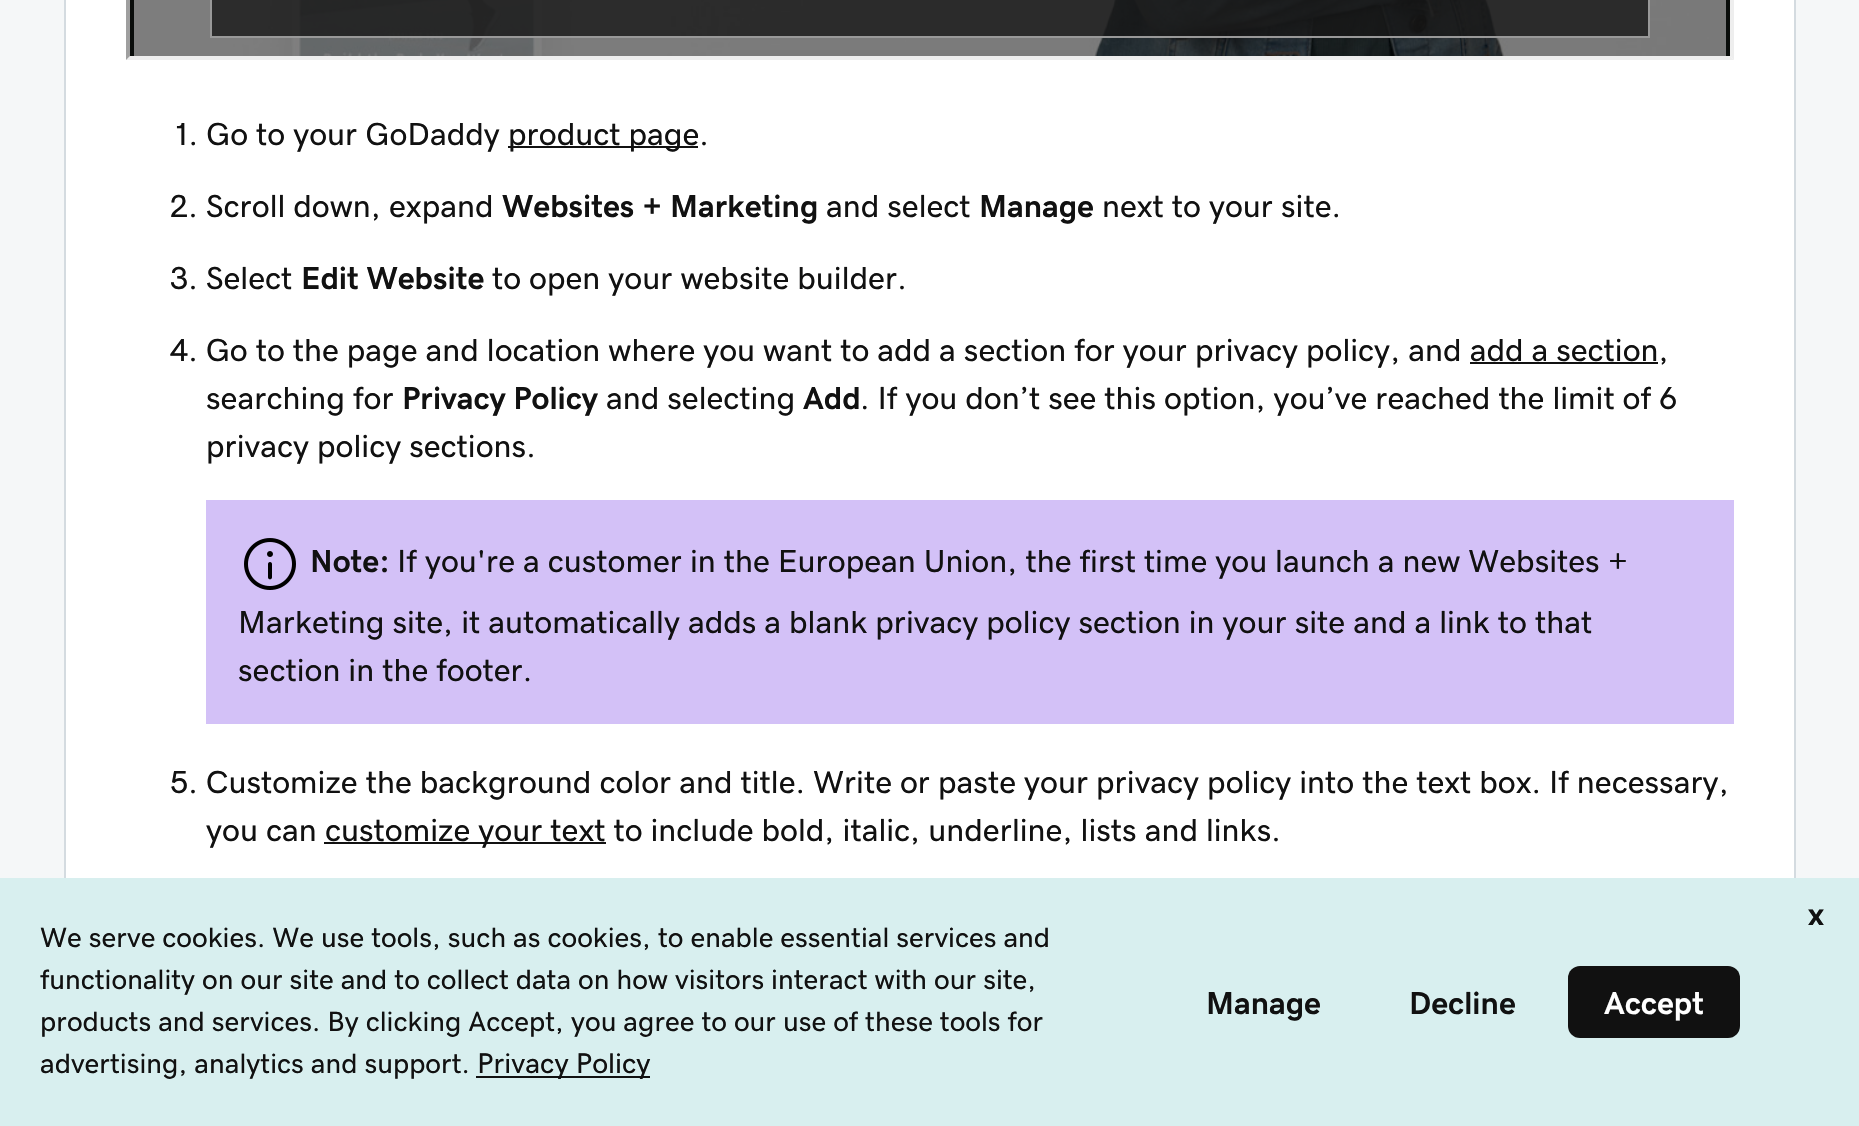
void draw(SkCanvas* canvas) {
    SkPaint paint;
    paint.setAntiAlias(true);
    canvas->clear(0xFFF5F7F8);
    paint.setColor(0xFFFFFFFF);
    canvas->drawRect(SkRect::MakeXYWH(66, 0, 1728, 878), paint);
    paint.setStyle(SkPaint::kStroke_Style);
    paint.setStrokeWidth(2);
    paint.setColor(0xFFD4DBE0);
    canvas->drawRect(SkRect::MakeXYWH(65, -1, 1730, 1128), paint);
    paint.setStyle(SkPaint::kFill_Style);
    paint.setColor(0xFFEEEEEE);
    canvas->drawPath(SkPathBuilder().moveTo(1734, -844).lineTo(1734, 60).lineTo(1730, 56).lineTo(1730, -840).close().detach(), paint);
    canvas->drawPath(SkPathBuilder().moveTo(1734, 60).lineTo(126, 60).lineTo(130, 56).lineTo(1730, 56).close().detach(), paint);
    paint.setColor(0xFF9F9F9F);
    canvas->drawPath(SkPathBuilder().moveTo(126, 60).lineTo(126, -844).lineTo(130, -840).lineTo(130, 56).close().detach(), paint);
    canvas->drawImageRect(SkImages::DeferredFromEncodedData(SkData::MakeFromFileName("img1.png")), SkRect::MakeXYWH(130, 0, 1600, 56), SkSamplingOptions());
    SkFont font1(fontMgr->matchFamilyStyle("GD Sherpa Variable", SkFontStyle::Normal()), 32);
    font1.setSubpixel(true);
    paint.setColor(0xFF111111);
    canvas->drawString("1. Go to your GoDaddy", 174, 145, font1, paint);
    canvas->drawRect(SkRect::MakeXYWH(508, 146, 190, 2), paint);
    canvas->drawString("product page.", 508, 145, font1, paint);
    canvas->drawString("2. Scroll down, expand", 170, 217, font1, paint);
    SkFont font2(fontMgr->matchFamilyStyle("GD Sherpa Variable", SkFontStyle::Bold()), 32);
    font2.setSubpixel(true);
    canvas->drawString("Websites + Marketing", 502, 217, font2, paint);
    canvas->drawString("and select", 826, 217, font1, paint);
    canvas->drawString("Manage", 979, 217, font2, paint);
    canvas->drawString("next to your site.", 1102, 217, font1, paint);
    canvas->drawString("3. Select", 170, 289, font1, paint);
    canvas->drawString("Edit Website", 301, 289, font2, paint);
    canvas->drawString("to open your website builder.", 492, 289, font1, paint);
    canvas->drawString("4. Go to the page and location where you want to add a section for your privacy policy, and add a section,", 170, 361, font1, paint);
    canvas->drawRect(SkRect::MakeXYWH(1470, 362, 188, 2), paint);
    canvas->drawString("searching for", 206, 409, font1, paint);
    canvas->drawString("Privacy Policy", 402, 409, font2, paint);
    canvas->drawString("and selecting", 606, 409, font1, paint);
    canvas->drawString("Add", 803, 409, font2, paint);
    canvas->drawString(". If you don’t see this option, you’ve reached the limit of 6", 860, 409, font1, paint);
    canvas->drawString("privacy policy sections.", 206, 457, font1, paint);
    paint.setColor(0xFFD3C1F7);
    canvas->drawRect(SkRect::MakeXYWH(206, 500, 1528, 224), paint);
    canvas->drawImageRect(SkImages::DeferredFromEncodedData(SkData::MakeFromFileName("img2.png")), SkRect::MakeXYWH(244, 538, 52, 52), SkSamplingOptions());
    paint.setColor(0xFF111111);
    canvas->drawString("Note:", 310, 572, font2, paint);
    canvas->drawString("If you're a customer in the European Union, the first time you launch a new Websites +", 397, 572, font1, paint);
    canvas->drawString("Marketing site, it automatically adds a blank privacy policy section in your site and a link to that", 238, 633, font1, paint);
    canvas->drawString("section in the footer.", 238, 681, font1, paint);
    canvas->drawString("5. Customize the background color and title. Write or paste your privacy policy into the text box. If necessary,", 170, 793, font1, paint);
    canvas->drawString("you can", 206, 841, font1, paint);
    canvas->drawRect(SkRect::MakeXYWH(324, 842, 282, 2), paint);
    canvas->drawString("customize your text to include bold, italic, underline, lists and links.", 325, 841, font1, paint);
    paint.setColor(0xFFD8EFEF);
    canvas->drawRect(SkRect::MakeXYWH(0, 878, 1859, 248), paint);
    SkFont font3(fontMgr->matchFamilyStyle("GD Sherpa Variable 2", SkFontStyle::Bold()), 32);
    font3.setSubpixel(true);
    paint.setColor(0xFF111111);
    canvas->drawString("x", 1808, 925, font3, paint);
    SkFont font4(fontMgr->matchFamilyStyle("GD Sherpa Variable", SkFontStyle::Normal()), 28);
    font4.setSubpixel(true);
    canvas->drawString("We serve cookies. We use tools, such as cookies, to enable essential services and", 40, 947, font4, paint);
    canvas->drawString("functionality on our site and to collect data on how visitors interact with our site,", 40, 989, font4, paint);
    canvas->drawString("products and services. By clicking Accept, you agree to our use of these tools for", 40, 1031, font4, paint);
    canvas->drawString("advertising, analytics and support.", 40, 1073, font4, paint);
    canvas->drawRect(SkRect::MakeXYWH(476, 1076, 174, 2), paint);
    SkFont font5(fontMgr->matchFamilyStyle("GD Sherpa Variable", SkFontStyle::Normal()), 28.5f);
    font5.setSubpixel(true);
    canvas->drawString("Privacy Policy", 477, 1073, font5, paint);
    canvas->drawString("Manage", 1206, 1014, font3, paint);
    canvas->drawString("Decline", 1409, 1014, font3, paint);
    canvas->drawRoundRect(SkRect::MakeXYWH(1568, 966, 172, 72), 12, 12, paint);
    paint.setColor(0xFFFFFFFF);
    canvas->drawString("Accept", 1604, 1014, font3, paint);
}
